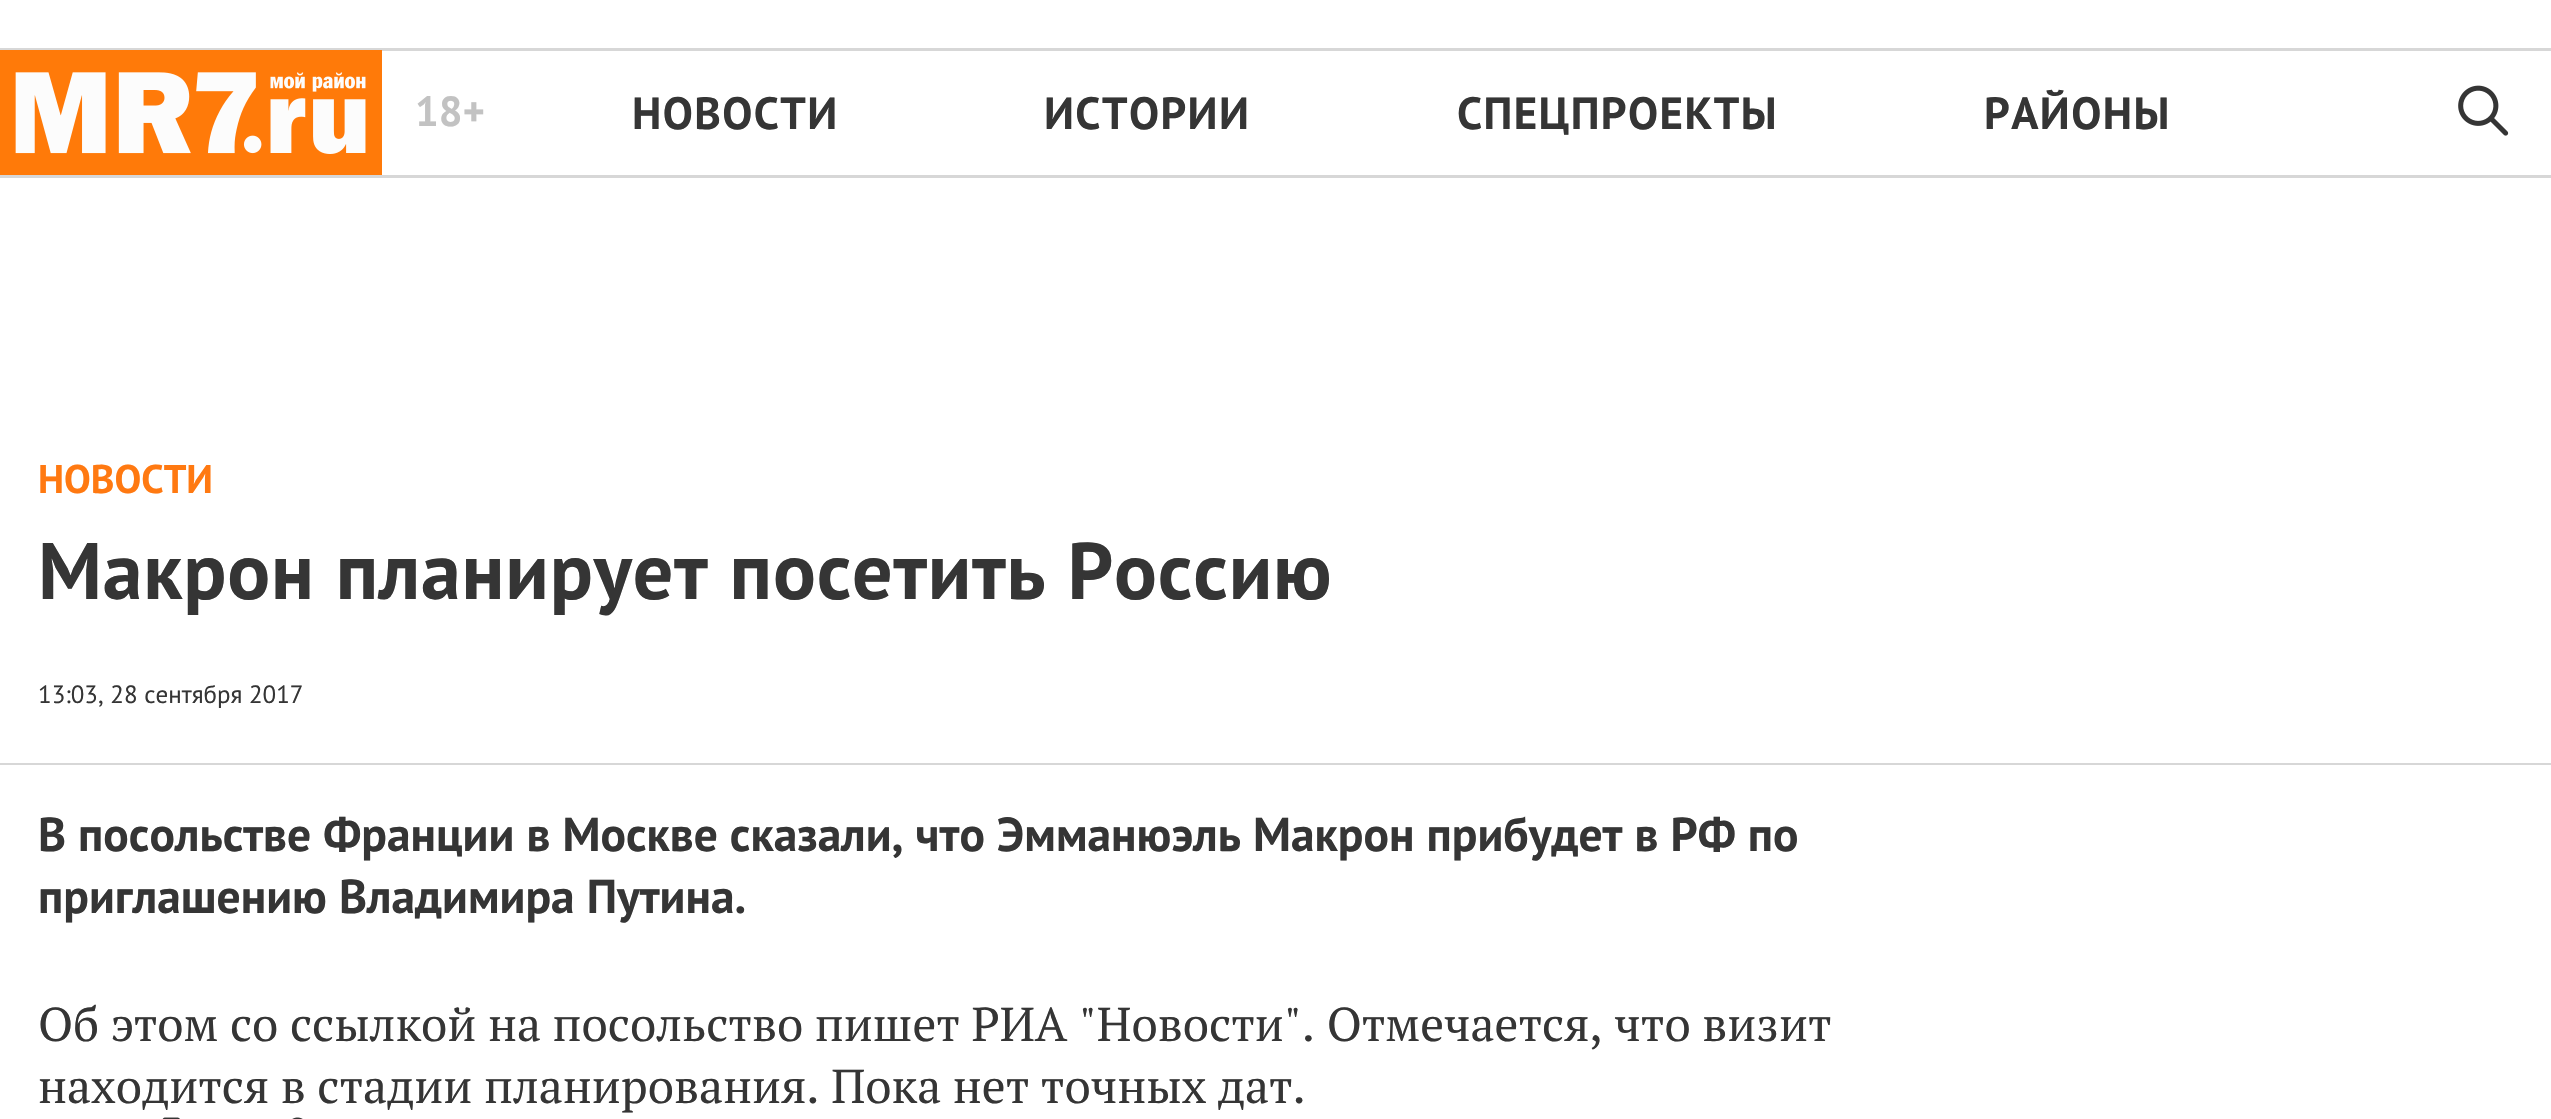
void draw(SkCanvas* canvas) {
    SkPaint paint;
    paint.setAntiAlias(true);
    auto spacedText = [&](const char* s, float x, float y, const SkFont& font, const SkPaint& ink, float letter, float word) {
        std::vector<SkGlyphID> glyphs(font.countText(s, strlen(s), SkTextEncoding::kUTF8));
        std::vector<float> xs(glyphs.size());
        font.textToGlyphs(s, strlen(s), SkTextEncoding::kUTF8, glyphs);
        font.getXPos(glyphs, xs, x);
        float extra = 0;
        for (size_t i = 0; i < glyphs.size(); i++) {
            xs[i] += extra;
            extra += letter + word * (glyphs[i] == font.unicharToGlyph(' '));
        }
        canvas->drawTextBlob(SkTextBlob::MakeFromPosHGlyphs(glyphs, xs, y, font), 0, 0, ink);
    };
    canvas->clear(0xFFFFFFFF);
    paint.setColor(0xFFD7D7D7);
    canvas->drawRect(SkRect::MakeXYWH(0, 48, 2551, 3), paint);
    canvas->drawRect(SkRect::MakeXYWH(0, 175, 2551, 3), paint);
    canvas->drawImageRect(SkImages::DeferredFromEncodedData(SkData::MakeFromFileName("img1.png")), SkRect::MakeXYWH(0, 50, 382, 125), SkSamplingOptions());
    SkFont font1(fontMgr->matchFamilyStyle("PT Sans", SkFontStyle::Bold()), 42);
    font1.setSubpixel(true);
    paint.setColor(0xFFC2C2C2);
    canvas->drawString("18+", 415, 126, font1, paint);
    SkFont font2(fontMgr->matchFamilyStyle("PT Sans", SkFontStyle::Bold()), 45);
    font2.setSubpixel(true);
    paint.setColor(0xFF353535);
    spacedText("НОВОСТИ", 632, 129, font2, paint, 1.4f, 0);
    spacedText("ИСТОРИИ", 1044, 129, font2, paint, 1.4f, 0);
    spacedText("СПЕЦПРОЕКТЫ", 1457, 129, font2, paint, 1.4f, 0);
    spacedText("РАЙОНЫ", 1984, 129, font2, paint, 1.4f, 0);
    canvas->drawImageRect(SkImages::DeferredFromEncodedData(SkData::MakeFromFileName("img2.png")), SkRect::MakeXYWH(2458, 85, 51, 51), SkSamplingOptions());
    paint.setColor(0xFFD7D7D7);
    canvas->drawRect(SkRect::MakeXYWH(0, 763, 2551, 2), paint);
    SkFont font3(fontMgr->matchFamilyStyle("PT Sans", SkFontStyle::Bold()), 40);
    font3.setSubpixel(true);
    paint.setColor(0xFFFF7911);
    canvas->drawString("НОВОСТИ", 38, 493, font3, paint);
    SkFont font4(fontMgr->matchFamilyStyle("PT Sans", SkFontStyle::Bold()), 80);
    font4.setSubpixel(true);
    paint.setColor(0xFF353535);
    spacedText("Макрон планирует посетить Россию", 38, 599, font4, paint, 0.8f, 0);
    SkFont font5(fontMgr->matchFamilyStyle("PT Sans", SkFontStyle::Normal()), 25);
    font5.setSubpixel(true);
    canvas->drawString("13:03, 28 сентября 2017", 38, 703, font5, paint);
    SkFont font6(fontMgr->matchFamilyStyle("PT Sans", SkFontStyle::Bold()), 47.5f);
    font6.setSubpixel(true);
    canvas->drawString("В посольстве Франции в Москве сказали, что Эмманюэль Макрон прибудет в РФ по", 38, 851, font6, paint);
    canvas->drawString("приглашению Владимира Путина.", 38, 913, font6, paint);
    SkFont font7(fontMgr->matchFamilyStyle("PT Serif", SkFontStyle::Normal()), 47.5f);
    font7.setSubpixel(true);
    canvas->drawString("Об этом со ссылкой на посольство пишет РИА \"Новости\". Отмечается, что визит", 38, 1041, font7, paint);
    canvas->drawString("находится в стадии планирования. Пока нет точных дат.", 38, 1103, font7, paint);
    canvas->drawImageRect(SkImages::DeferredFromEncodedData(SkData::MakeFromFileName("img3.png")), SkRect::MakeXYWH(162, 1117, 18, 2), SkSamplingOptions());
    canvas->drawImageRect(SkImages::DeferredFromEncodedData(SkData::MakeFromFileName("img4.png")), SkRect::MakeXYWH(292, 1117, 11, 2), SkSamplingOptions());
}
